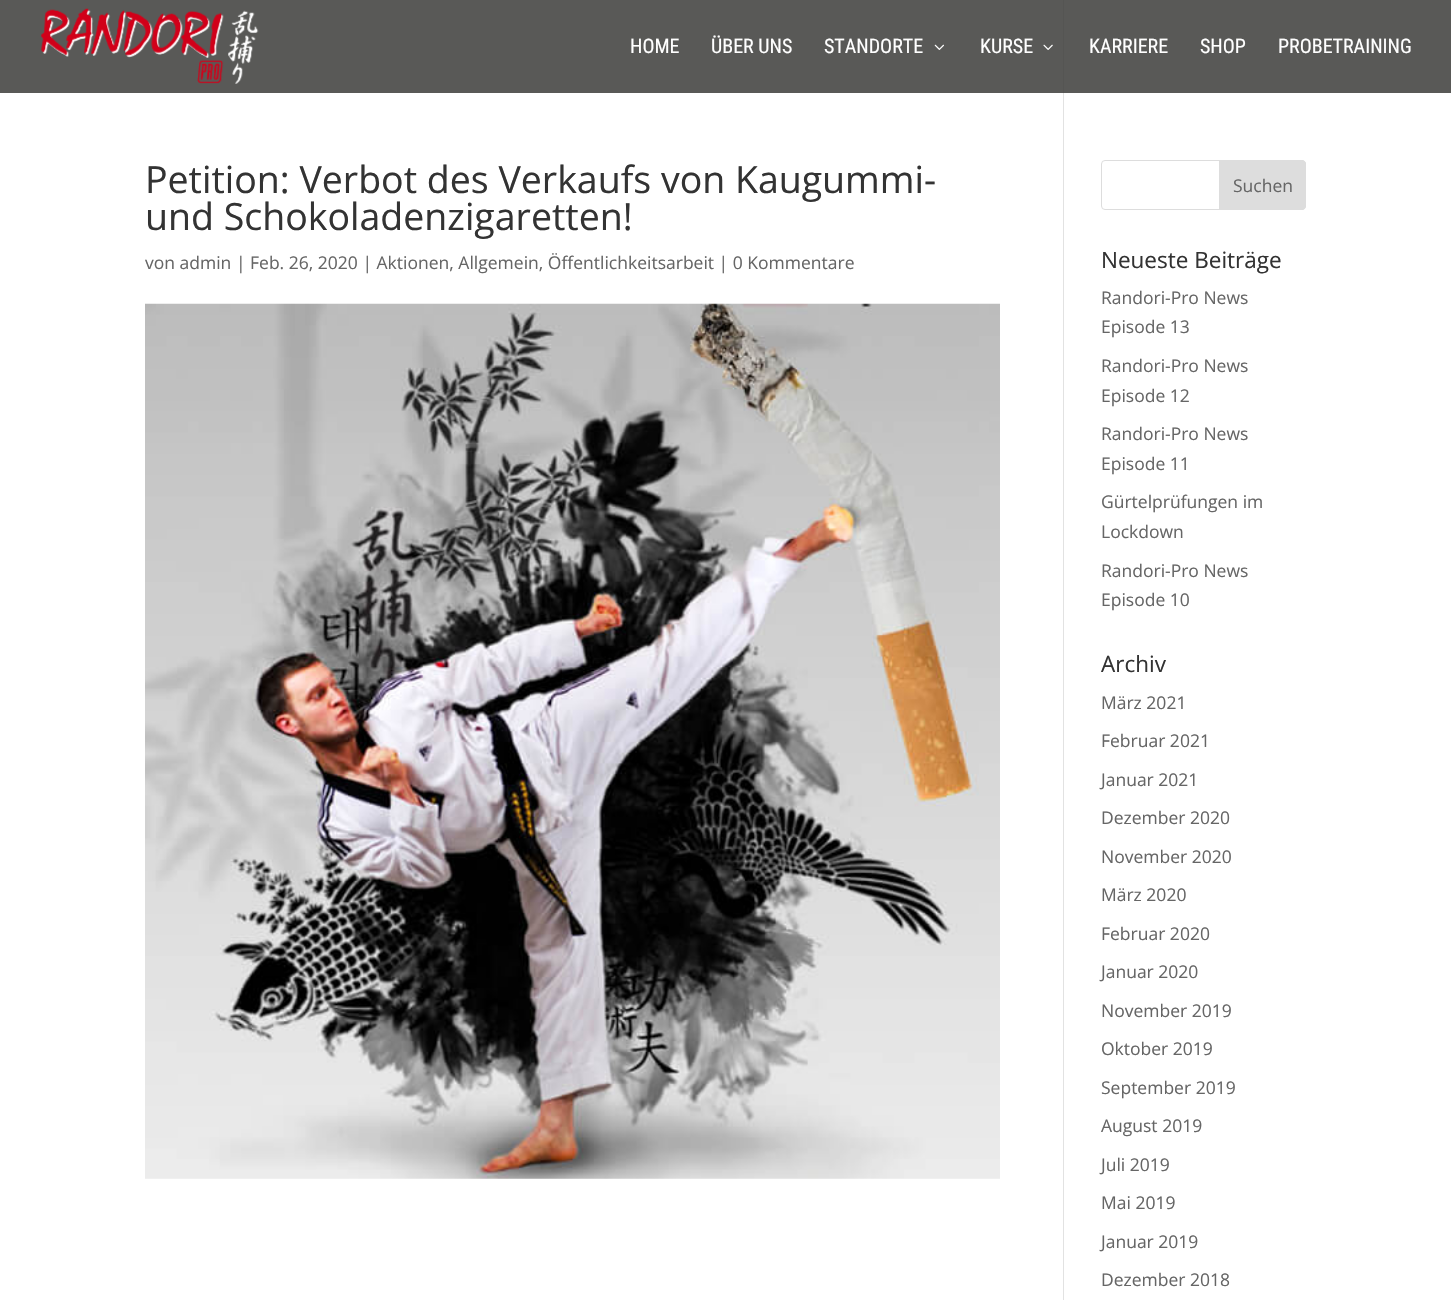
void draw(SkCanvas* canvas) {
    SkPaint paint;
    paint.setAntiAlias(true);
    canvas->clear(0xFFFFFFFF);
    paint.setColor(0xFF595957);
    canvas->drawRect(SkRect::MakeXYWH(0, 0, 1451, 93), paint);
    canvas->drawImageRect(SkImages::DeferredFromEncodedData(SkData::MakeFromFileName("img1.png")), SkRect::MakeXYWH(41, 8, 218, 76), SkSamplingOptions());
    SkFont font1(fontMgr->matchFamilyStyle("Roboto Condensed", SkFontStyle::Normal()), 20);
    font1.setSubpixel(true);
    paint.setColor(0xFFFFFFFF);
    canvas->drawString("HOME", 630, 53, font1, paint);
    canvas->drawString("ÜBER UNS", 711, 53, font1, paint);
    canvas->drawString("STANDORTE", 824, 53, font1, paint);
    canvas->drawImageRect(SkImages::DeferredFromEncodedData(SkData::MakeFromFileName("img2.png")), SkRect::MakeXYWH(934, 44, 10, 6), SkSamplingOptions());
    canvas->drawString("KURSE", 980, 53, font1, paint);
    canvas->drawImageRect(SkImages::DeferredFromEncodedData(SkData::MakeFromFileName("img3.png")), SkRect::MakeXYWH(1043, 44, 10, 6), SkSamplingOptions());
    canvas->drawString("KARRIERE", 1089, 53, font1, paint);
    canvas->drawString("SHOP", 1200, 53, font1, paint);
    canvas->drawString("PROBETRAINING", 1278, 53, font1, paint);
    paint.setColor(0xFFE2E2E2);
    canvas->drawRect(SkRect::MakeXYWH(1063, 93, 1, 1207), paint);
    paint.setColor(0xFF555553);
    canvas->drawRect(SkRect::MakeXYWH(1063, 0, 1, 93), paint);
    SkFont font2(fontMgr->matchFamilyStyle("Open Sans", SkFontStyle::Normal()), 37.5f);
    font2.setSubpixel(true);
    paint.setColor(0xFF333333);
    canvas->drawString("Petition: Verbot des Verkaufs von Kaugummi-", 145, 193, font2, paint);
    canvas->drawString("und Schokoladenzigaretten!", 145, 230, font2, paint);
    SkFont font3(fontMgr->matchFamilyStyle("Open Sans", SkFontStyle::Normal()), 17.5f);
    font3.setSubpixel(true);
    paint.setColor(0xFF666666);
    canvas->drawString("von admin | Feb. 26, 2020 | Aktionen, Allgemein, Öffentlichkeitsarbeit | 0 Kommentare", 145, 269, font3, paint);
    canvas->drawImageRect(SkImages::DeferredFromEncodedData(SkData::MakeFromFileName("img4.png")), SkRect::MakeXYWH(145, 303, 855, 876), SkSamplingOptions());
    paint.setStyle(SkPaint::kStroke_Style);
    paint.setStrokeWidth(1);
    paint.setColor(0xFFDDDDDD);
    canvas->drawRoundRect(SkRect::MakeXYWH(1101.5f, 160.5f, 204, 49), 3.5f, 3.5f, paint);
    paint.setStyle(SkPaint::kFill_Style);
    canvas->drawPath(SkPathBuilder().moveTo(1219.5f, 160.5f).lineTo(1302, 160.5f).cubicTo(1304, 160.5f, 1305.5f, 162, 1305.5f, 164).lineTo(1305.5f, 206).cubicTo(1305.5f, 208, 1304, 209.5f, 1302, 209.5f).lineTo(1219.5f, 209.5f).close().detach(), paint);
    paint.setStyle(SkPaint::kStroke_Style);
    canvas->drawPath(SkPathBuilder().moveTo(1219.5f, 160.5f).lineTo(1302, 160.5f).cubicTo(1304, 160.5f, 1305.5f, 162, 1305.5f, 164).lineTo(1305.5f, 206).cubicTo(1305.5f, 208, 1304, 209.5f, 1302, 209.5f).lineTo(1219.5f, 209.5f).close().detach(), paint);
    paint.setStyle(SkPaint::kFill_Style);
    paint.setColor(0xFF666666);
    canvas->drawString("Suchen", 1233, 192, font3, paint);
    SkFont font4(fontMgr->matchFamilyStyle("Open Sans", SkFontStyle::Normal()), 22.5f);
    font4.setSubpixel(true);
    paint.setColor(0xFF333333);
    canvas->drawString("Neueste Beiträge", 1101, 268, font4, paint);
    paint.setColor(0xFF666666);
    canvas->drawString("Randori-Pro News", 1101, 304, font3, paint);
    canvas->drawString("Episode 13", 1101, 333, font3, paint);
    canvas->drawString("Randori-Pro News", 1101, 372, font3, paint);
    canvas->drawString("Episode 12", 1101, 402, font3, paint);
    canvas->drawString("Randori-Pro News", 1101, 440, font3, paint);
    canvas->drawString("Episode 11", 1101, 470, font3, paint);
    canvas->drawString("Gürtelprüfungen im", 1101, 508, font3, paint);
    canvas->drawString("Lockdown", 1101, 538, font3, paint);
    canvas->drawString("Randori-Pro News", 1101, 577, font3, paint);
    canvas->drawString("Episode 10", 1101, 606, font3, paint);
    paint.setColor(0xFF333333);
    canvas->drawString("Archiv", 1101, 672, font4, paint);
    paint.setColor(0xFF666666);
    canvas->drawString("März 2021", 1101, 709, font3, paint);
    canvas->drawString("Februar 2021", 1101, 747, font3, paint);
    canvas->drawString("Januar 2021", 1101, 786, font3, paint);
    canvas->drawString("Dezember 2020", 1101, 824, font3, paint);
    canvas->drawString("November 2020", 1101, 863, font3, paint);
    canvas->drawString("März 2020", 1101, 901, font3, paint);
    canvas->drawString("Februar 2020", 1101, 940, font3, paint);
    canvas->drawString("Januar 2020", 1101, 978, font3, paint);
    canvas->drawString("November 2019", 1101, 1017, font3, paint);
    canvas->drawString("Oktober 2019", 1101, 1055, font3, paint);
    canvas->drawString("September 2019", 1101, 1094, font3, paint);
    canvas->drawString("August 2019", 1101, 1132, font3, paint);
    canvas->drawString("Juli 2019", 1101, 1171, font3, paint);
    canvas->drawString("Mai 2019", 1101, 1209, font3, paint);
    canvas->drawString("Januar 2019", 1101, 1248, font3, paint);
    canvas->drawString("Dezember 2018", 1101, 1286, font3, paint);
}
